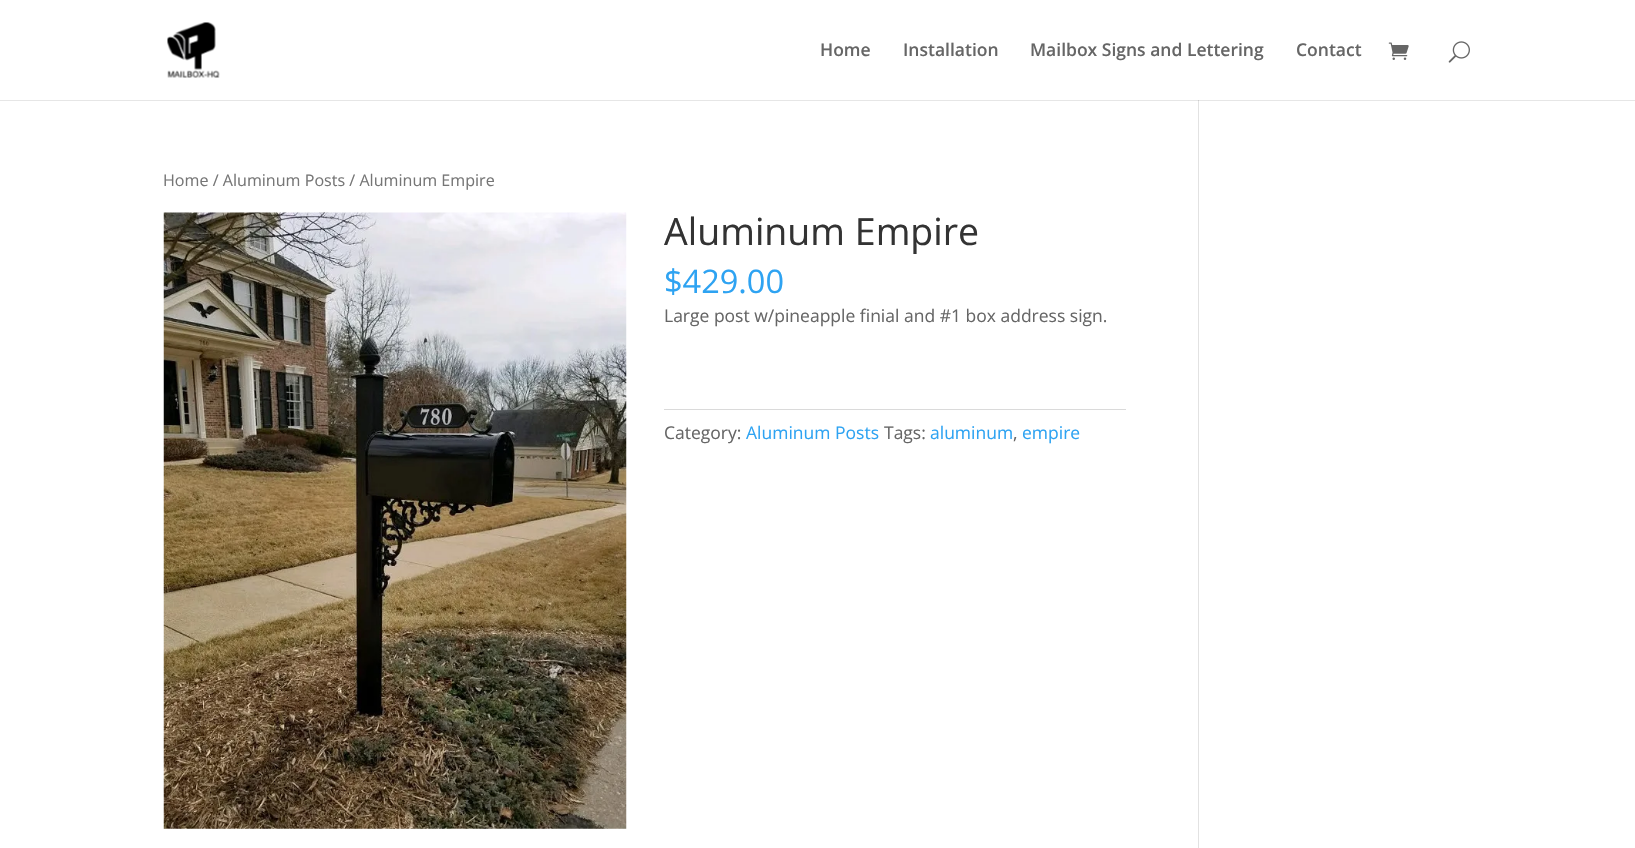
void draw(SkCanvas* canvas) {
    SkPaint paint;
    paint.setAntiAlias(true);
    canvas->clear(0xFFFFFFFF);
    paint.setColor(0xFFE6E6E6);
    canvas->drawRect(SkRect::MakeXYWH(0, 100, 1635, 1), paint);
    paint.setColor(0xFFE2E2E2);
    canvas->drawRect(SkRect::MakeXYWH(1198, 94, 1, 754), paint);
    paint.setColor(0xFFFFFFFF);
    canvas->drawRect(SkRect::MakeXYWH(1198, 94, 1, 6), paint);
    canvas->drawImageRect(SkImages::DeferredFromEncodedData(SkData::MakeFromFileName("img1.png")), SkRect::MakeXYWH(167, 22, 53, 56), SkSamplingOptions());
    SkFont font1(fontMgr->matchFamilyStyle("Open Sans", SkFontStyle(600, SkFontStyle::kNormal_Width, SkFontStyle::kUpright_Slant)), 17.5f);
    font1.setSubpixel(true);
    paint.setColor(0xFF666666);
    canvas->drawString("Home", 820, 56, font1, paint);
    canvas->drawString("Installation", 903, 56, font1, paint);
    canvas->drawString("Mailbox Signs and Lettering", 1030, 56, font1, paint);
    canvas->drawString("Contact", 1296, 56, font1, paint);
    canvas->drawImageRect(SkImages::DeferredFromEncodedData(SkData::MakeFromFileName("img2.png")), SkRect::MakeXYWH(1388, 42, 21, 18), SkSamplingOptions());
    canvas->drawImageRect(SkImages::DeferredFromEncodedData(SkData::MakeFromFileName("img3.png")), SkRect::MakeXYWH(1448, 41, 22, 22), SkSamplingOptions());
    SkFont font2(fontMgr->matchFamilyStyle("Open Sans", SkFontStyle::Normal()), 16.1f);
    font2.setSubpixel(true);
    paint.setColor(0xFF767676);
    canvas->drawString("Home / Aluminum Posts / Aluminum Empire", 163, 186, font2, paint);
    canvas->drawImageRect(SkImages::DeferredFromEncodedData(SkData::MakeFromFileName("img4.png")), SkRect::MakeXYWH(163, 212, 464, 617), SkSamplingOptions());
    SkFont font3(fontMgr->matchFamilyStyle("Open Sans", SkFontStyle::Normal()), 37.5f);
    font3.setSubpixel(true);
    paint.setColor(0xFF333333);
    canvas->drawString("Aluminum Empire", 664, 245, font3, paint);
    SkFont font4(fontMgr->matchFamilyStyle("Open Sans", SkFontStyle::Normal()), 32.5f);
    font4.setSubpixel(true);
    paint.setColor(0xFF2EA3F2);
    canvas->drawString("$429.00", 664, 293, font4, paint);
    SkFont font5(fontMgr->matchFamilyStyle("Open Sans", SkFontStyle::Normal()), 17.5f);
    font5.setSubpixel(true);
    paint.setColor(0xFF666666);
    canvas->drawString("Large post w/pineapple finial and #1 box address sign.", 664, 322, font5, paint);
    paint.setColor(0xFFDADADA);
    canvas->drawRect(SkRect::MakeXYWH(664, 409, 462, 1), paint);
    paint.setColor(0xFF666666);
    canvas->drawString("Category:", 664, 439, font5, paint);
    paint.setColor(0xFF2EA3F2);
    canvas->drawString("Aluminum Posts", 746, 439, font5, paint);
    paint.setColor(0xFF666666);
    canvas->drawString("Tags:", 884, 439, font5, paint);
    paint.setColor(0xFF2EA3F2);
    canvas->drawString("aluminum", 930, 439, font5, paint);
    paint.setColor(0xFF666666);
    canvas->drawString(",", 1013, 439, font5, paint);
    paint.setColor(0xFF2EA3F2);
    canvas->drawString("empire", 1022, 439, font5, paint);
    paint.setColor(0xFFCBCBCB);
    canvas->drawRect(SkRect::MakeXYWH(1198, 100, 1, 1), paint);
}
